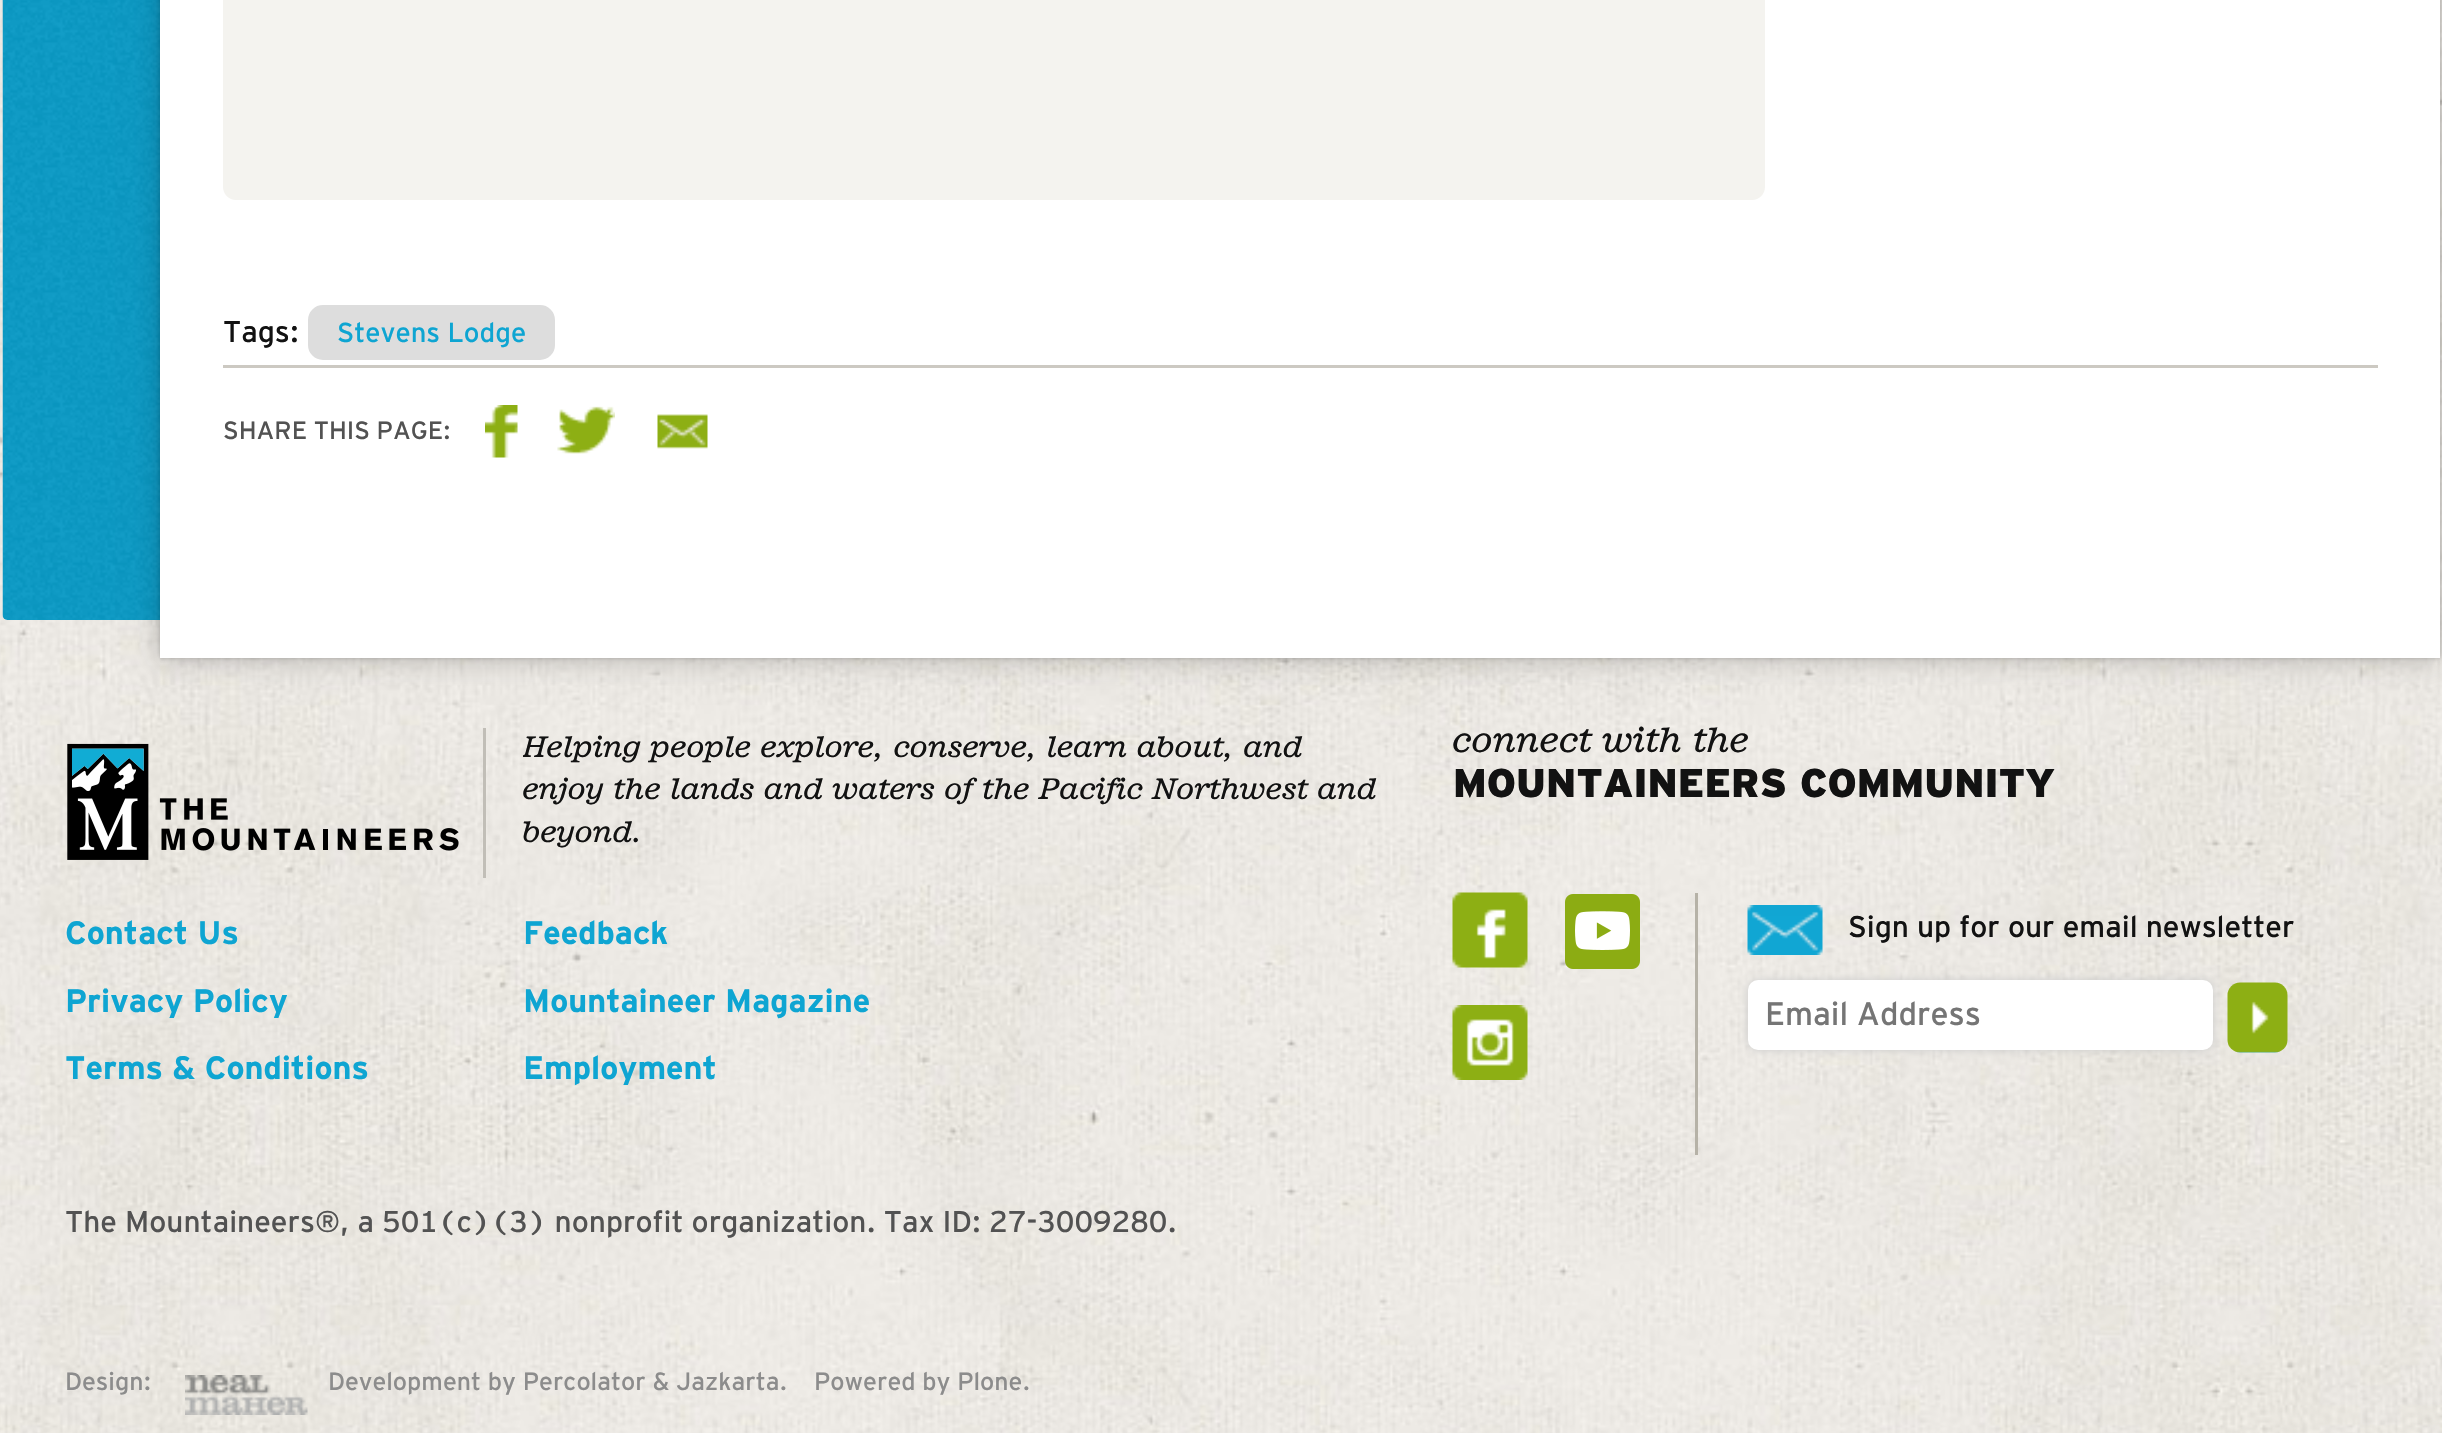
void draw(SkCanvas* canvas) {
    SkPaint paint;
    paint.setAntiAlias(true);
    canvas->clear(0xFFFFFFFF);
    canvas->drawImageRect(SkImages::DeferredFromEncodedData(SkData::MakeFromFileName("img1.png")), SkRect::MakeXYWH(0, 0, 2442, 1433), SkSamplingOptions());
    canvas->drawImageRect(SkImages::DeferredFromEncodedData(SkData::MakeFromFileName("img2.png")), SkRect::MakeXYWH(2, 0, 158, 620), SkSamplingOptions());
    paint.setColor(0x33000000);
    paint.setMaskFilter(SkMaskFilter::MakeBlur(kNormal_SkBlurStyle, 15));
    canvas->drawRect(SkRect::MakeXYWH(160, -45, 2280, 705), paint);
    paint.setMaskFilter(nullptr);
    paint.setMaskFilter(SkMaskFilter::MakeBlur(kNormal_SkBlurStyle, 2.5f));
    canvas->drawRect(SkRect::MakeXYWH(160, -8, 2280, 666), paint);
    paint.setMaskFilter(nullptr);
    paint.setColor(0xFFFFFFFF);
    canvas->drawRect(SkRect::MakeXYWH(160, 0, 2280, 658), paint);
    paint.setColor(0xFFF4F3EF);
    canvas->drawPath(SkPathBuilder().moveTo(223, -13).lineTo(1765, -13).lineTo(1765, 187).cubicTo(1765, 194, 1759, 200, 1752, 200).lineTo(236, 200).cubicTo(229, 200, 223, 194, 223, 187).close().detach(), paint);
    SkFont font1(fontMgr->matchFamilyStyle("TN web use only", SkFontStyle::Normal()), 30);
    font1.setSubpixel(true);
    paint.setColor(0xFF121212);
    canvas->drawString("Tags:", 223, 342, font1, paint);
    paint.setColor(0xFFDDDDDD);
    canvas->drawRoundRect(SkRect::MakeXYWH(309.5f, 306.5f, 244, 52), 13.5f, 13.5f, paint);
    paint.setStyle(SkPaint::kStroke_Style);
    paint.setStrokeWidth(3);
    canvas->drawRoundRect(SkRect::MakeXYWH(309.5f, 306.5f, 244, 52), 13.5f, 13.5f, paint);
    SkFont font2(fontMgr->matchFamilyStyle("TN web use only", SkFontStyle::Normal()), 27.5f);
    font2.setSubpixel(true);
    paint.setStyle(SkPaint::kFill_Style);
    paint.setColor(0xFF0EA5D2);
    canvas->drawString("Stevens Lodge", 337, 342, font2, paint);
    paint.setColor(0xFFCCC9C2);
    canvas->drawRect(SkRect::MakeXYWH(223, 365, 2155, 3), paint);
    SkFont font3(fontMgr->matchFamilyStyle("TN web use only", SkFontStyle::Normal()), 25);
    font3.setSubpixel(true);
    paint.setColor(0xFF525252);
    canvas->drawString("SHARE THIS PAGE:", 223, 439, font3, paint);
    canvas->drawImageRect(SkImages::DeferredFromEncodedData(SkData::MakeFromFileName("img3.png")), SkRect::MakeXYWH(485, 405, 33, 53), SkSamplingOptions());
    canvas->drawImageRect(SkImages::DeferredFromEncodedData(SkData::MakeFromFileName("img4.png")), SkRect::MakeXYWH(557, 406, 58, 48), SkSamplingOptions());
    canvas->drawImageRect(SkImages::DeferredFromEncodedData(SkData::MakeFromFileName("img5.png")), SkRect::MakeXYWH(657, 414, 51, 35), SkSamplingOptions());
    canvas->drawImageRect(SkImages::DeferredFromEncodedData(SkData::MakeFromFileName("img6.png")), SkRect::MakeXYWH(67, 743, 392, 117), SkSamplingOptions());
    paint.setColor(0xFFC1BEB7);
    canvas->drawRect(SkRect::MakeXYWH(483, 728, 3, 150), paint);
    canvas->save();
    canvas->clipRect(SkRect::MakeXYWH(523, 728, 867, 127));
    SkFont font4(fontMgr->matchFamilyStyle("TN web use only", SkFontStyle::Italic()), 27.5f);
    font4.setSubpixel(true);
    paint.setColor(0xFF121212);
    canvas->drawString("Helping people explore, conserve, learn about, and", 523, 757, font4, paint);
    canvas->drawString("enjoy the lands and waters of the Pacific Northwest and", 523, 799, font4, paint);
    canvas->restore();
    canvas->drawString("beyond.", 523, 842, font4, paint);
    SkFont font5(fontMgr->matchFamilyStyle("TN web use only", SkFontStyle::Bold()), 32.5f);
    font5.setSubpixel(true);
    paint.setColor(0xFF0EA5D2);
    canvas->drawString("Contact Us", 65, 944, font5, paint);
    canvas->drawString("Feedback", 523, 944, font5, paint);
    canvas->drawString("Privacy Policy", 65, 1012, font5, paint);
    canvas->drawString("Mountaineer Magazine", 523, 1012, font5, paint);
    canvas->drawString("Terms & Conditions", 65, 1079, font5, paint);
    canvas->drawString("Employment", 523, 1079, font5, paint);
    SkFont font6(fontMgr->matchFamilyStyle("TN web use only", SkFontStyle::Italic()), 32.5f);
    font6.setSubpixel(true);
    paint.setColor(0xFF121212);
    canvas->drawString("connect with the", 1453, 752, font6, paint);
    SkFont font7(fontMgr->matchFamilyStyle("TN web use only", SkFontStyle(900, SkFontStyle::kNormal_Width, SkFontStyle::kUpright_Slant)), 40);
    font7.setSubpixel(true);
    canvas->drawString("MOUNTAINEERS COMMUNITY", 1453, 797, font7, paint);
    paint.setColor(0xFFB6B2A7);
    canvas->drawRect(SkRect::MakeXYWH(1695, 893, 3, 262), paint);
    canvas->drawImageRect(SkImages::DeferredFromEncodedData(SkData::MakeFromFileName("img7.png")), SkRect::MakeXYWH(1452, 892, 76, 76), SkSamplingOptions());
    canvas->drawImageRect(SkImages::DeferredFromEncodedData(SkData::MakeFromFileName("img8.png")), SkRect::MakeXYWH(1565, 894, 75, 75), SkSamplingOptions());
    canvas->drawImageRect(SkImages::DeferredFromEncodedData(SkData::MakeFromFileName("img9.png")), SkRect::MakeXYWH(1452, 1005, 76, 75), SkSamplingOptions());
    canvas->drawImageRect(SkImages::DeferredFromEncodedData(SkData::MakeFromFileName("img10.png")), SkRect::MakeXYWH(1747, 905, 76, 50), SkSamplingOptions());
    paint.setColor(0xFF121212);
    canvas->drawString("Sign up for our email newsletter", 1848, 937, font1, paint);
    paint.setColor(0xFFCCCCCC);
    paint.setMaskFilter(SkMaskFilter::MakeBlur(kNormal_SkBlurStyle, 4));
    canvas->drawRoundRect(SkRect::MakeXYWH(1748, 980, 465, 70), 10, 10, paint);
    paint.setMaskFilter(nullptr);
    paint.setColor(0xFFFFFFFF);
    canvas->drawRoundRect(SkRect::MakeXYWH(1748, 980, 465, 70), 10, 10, paint);
    SkFont font8(fontMgr->matchFamilyStyle("TN web use only", SkFontStyle::Normal()), 32.5f);
    font8.setSubpixel(true);
    paint.setColor(0xFF757575);
    canvas->drawString("Email Address", 1765, 1025, font8, paint);
    canvas->drawImageRect(SkImages::DeferredFromEncodedData(SkData::MakeFromFileName("img11.png")), SkRect::MakeXYWH(2227, 982, 61, 71), SkSamplingOptions());
    paint.setColor(0xFF525252);
    canvas->drawString("The Mountaineers®, a 501(c)(3) nonprofit organization. Tax ID: 27-3009280.", 65, 1232, font1, paint);
    paint.setColor(0xFF8C8C8C);
    canvas->drawString("Design:", 65, 1390, font3, paint);
    canvas->drawImageRect(SkImages::DeferredFromEncodedData(SkData::MakeFromFileName("img12.png")), SkRect::MakeXYWH(185, 1375, 123, 40), SkSamplingOptions());
    canvas->drawString("Development by Percolator & Jazkarta.", 328, 1390, font3, paint);
    canvas->drawString("Powered by Plone.", 814, 1390, font3, paint);
}
